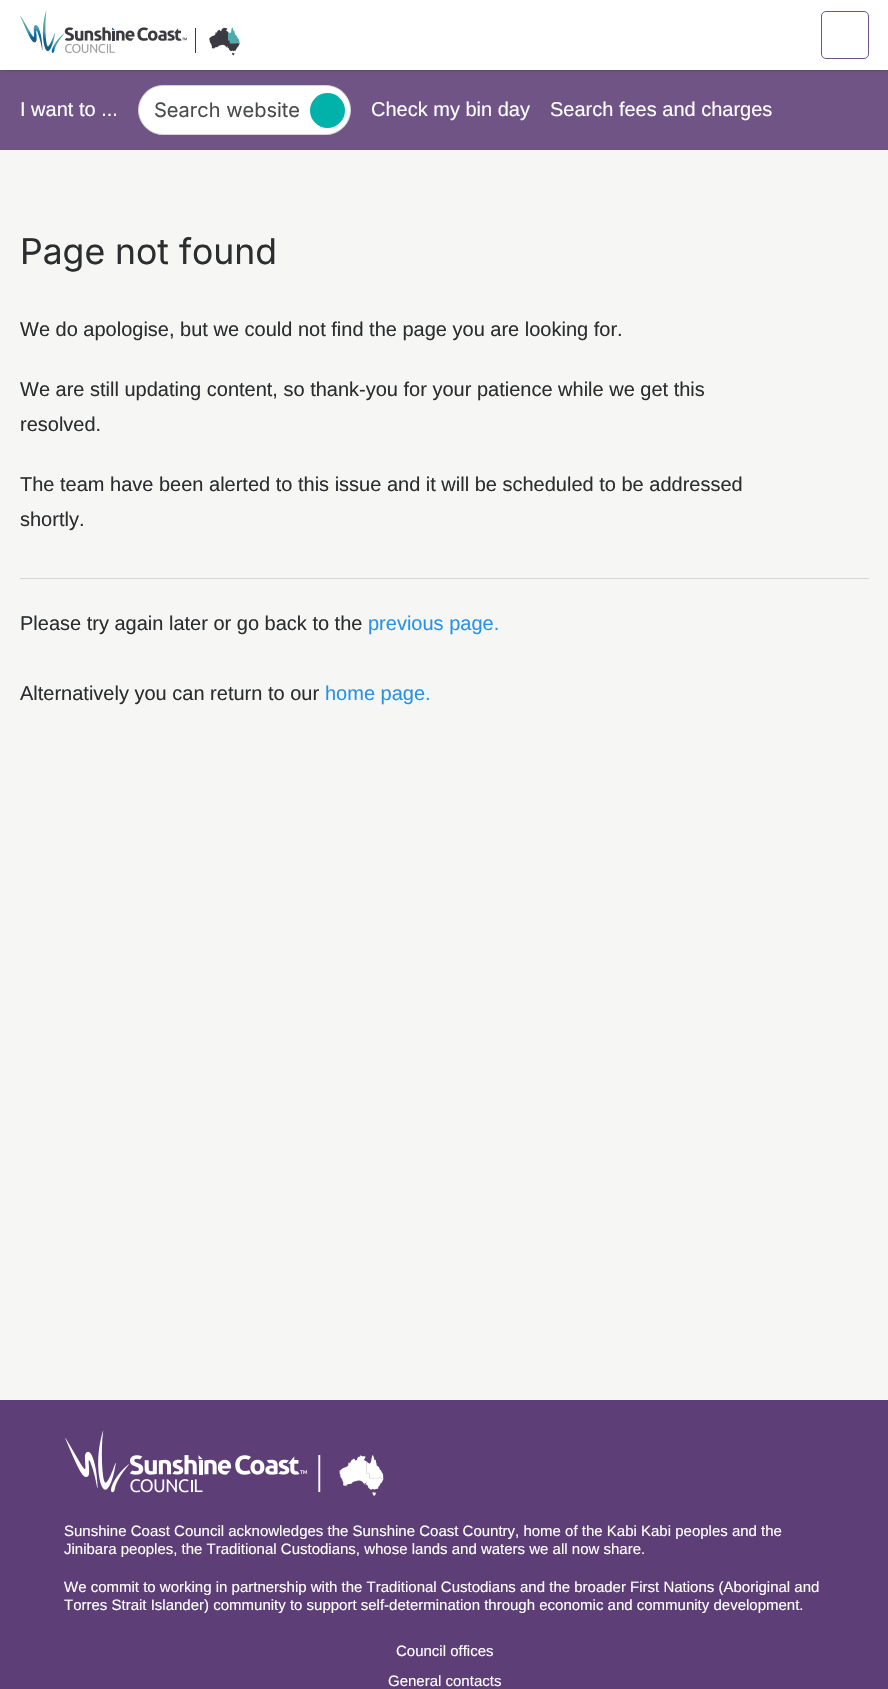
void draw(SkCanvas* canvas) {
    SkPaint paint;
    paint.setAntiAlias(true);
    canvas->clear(0xFFF6F6F5);
    paint.setColor(0xFF6F5485);
    canvas->drawRect(SkRect::MakeXYWH(0, 70, 888, 80), paint);
    paint.setColor(0x1A000000);
    paint.setMaskFilter(SkMaskFilter::MakeBlur(kNormal_SkBlurStyle, 1));
    canvas->drawRect(SkRect::MakeXYWH(1, 3, 887, 67), paint);
    paint.setMaskFilter(nullptr);
    paint.setMaskFilter(SkMaskFilter::MakeBlur(kNormal_SkBlurStyle, 2));
    canvas->drawRect(SkRect::MakeXYWH(0, 1, 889, 70), paint);
    paint.setMaskFilter(nullptr);
    paint.setColor(0xFFFFFFFF);
    canvas->drawRect(SkRect::MakeXYWH(0, 0, 888, 70), paint);
    canvas->drawImageRect(SkImages::DeferredFromEncodedData(SkData::MakeFromFileName("img1.png")), SkRect::MakeXYWH(20, 10, 220, 46), SkSamplingOptions());
    paint.setStyle(SkPaint::kStroke_Style);
    paint.setStrokeWidth(1);
    paint.setColor(0xFF6F5485);
    canvas->drawRoundRect(SkRect::MakeXYWH(821.5f, 11.5f, 47, 47), 4.5f, 4.5f, paint);
    SkFont font1(fontMgr->matchFamilyStyle("Liberation Sans", SkFontStyle::Normal()), 20);
    font1.setSubpixel(true);
    paint.setStyle(SkPaint::kFill_Style);
    paint.setColor(0xFFFFFFFF);
    canvas->drawString("I want to ...", 20, 116, font1, paint);
    canvas->drawRoundRect(SkRect::MakeXYWH(138.5f, 85.5f, 212, 49), 24.5f, 24.5f, paint);
    paint.setStyle(SkPaint::kStroke_Style);
    paint.setColor(0xFFD4D4D5);
    canvas->drawRoundRect(SkRect::MakeXYWH(138.5f, 85.5f, 212, 49), 24.5f, 24.5f, paint);
    SkFont font2(fontMgr->matchFamilyStyle("Inter", SkFontStyle::Normal()), 20);
    font2.setSubpixel(true);
    paint.setStyle(SkPaint::kFill_Style);
    paint.setColor(0xFF4A4B4C);
    canvas->drawString("Search website", 154, 117, font2, paint);
    paint.setColor(0xFF00B2A9);
    canvas->drawCircle(327.5f, 110.5f, 17.5f, paint);
    paint.setColor(0xFFFFFFFF);
    canvas->drawString("Check my bin day", 371, 116, font1, paint);
    canvas->drawString("Search fees and charges", 550, 116, font1, paint);
    SkFont font3(fontMgr->matchFamilyStyle("Inter", SkFontStyle::Normal()), 35.5f);
    font3.setSubpixel(true);
    paint.setColor(0xFF2B2D2F);
    canvas->drawString("Page not found", 20, 264, font3, paint);
    canvas->drawString("We do apologise, but we could not find the page you are looking for.", 20, 336, font1, paint);
    canvas->drawString("We are still updating content, so thank-you for your patience while we get this", 20, 396, font1, paint);
    canvas->drawString("resolved.", 20, 431, font1, paint);
    canvas->drawString("The team have been alerted to this issue and it will be scheduled to be addressed", 20, 491, font1, paint);
    canvas->drawString("shortly.", 20, 526, font1, paint);
    paint.setColor(0xFFD4D4D5);
    canvas->drawRect(SkRect::MakeXYWH(20, 578, 849, 1), paint);
    paint.setColor(0xFF2B2D2F);
    canvas->drawString("Please try again later or go back to the", 20, 630, font1, paint);
    paint.setColor(0xFF2892E6);
    canvas->drawString("previous page.", 368, 630, font1, paint);
    paint.setColor(0xFF2B2D2F);
    canvas->drawString("Alternatively you can return to our", 20, 700, font1, paint);
    paint.setColor(0xFF2892E6);
    canvas->drawString("home page.", 325, 700, font1, paint);
    paint.setColor(0xFF5D3E76);
    canvas->drawRect(SkRect::MakeXYWH(0, 1400, 888, 289), paint);
    canvas->drawImageRect(SkImages::DeferredFromEncodedData(SkData::MakeFromFileName("img2.png")), SkRect::MakeXYWH(65, 1430, 319, 66), SkSamplingOptions());
    SkFont font4(fontMgr->matchFamilyStyle("Liberation Sans", SkFontStyle::Normal()), 15);
    font4.setSubpixel(true);
    paint.setColor(0xFFFFFFFF);
    canvas->drawString("Sunshine Coast Council acknowledges the Sunshine Coast Country, home of the Kabi Kabi peoples and the", 64, 1536, font4, paint);
    canvas->drawString("Jinibara peoples, the Traditional Custodians, whose lands and waters we all now share.", 64, 1554, font4, paint);
    canvas->drawString("We commit to working in partnership with the Traditional Custodians and the broader First Nations (Aboriginal and", 64, 1592, font4, paint);
    canvas->drawString("Torres Strait Islander) community to support self-determination through economic and community development.", 64, 1610, font4, paint);
    canvas->drawString("Council offices", 396, 1656, font4, paint);
    canvas->drawString("General contacts", 388, 1686, font4, paint);
}
